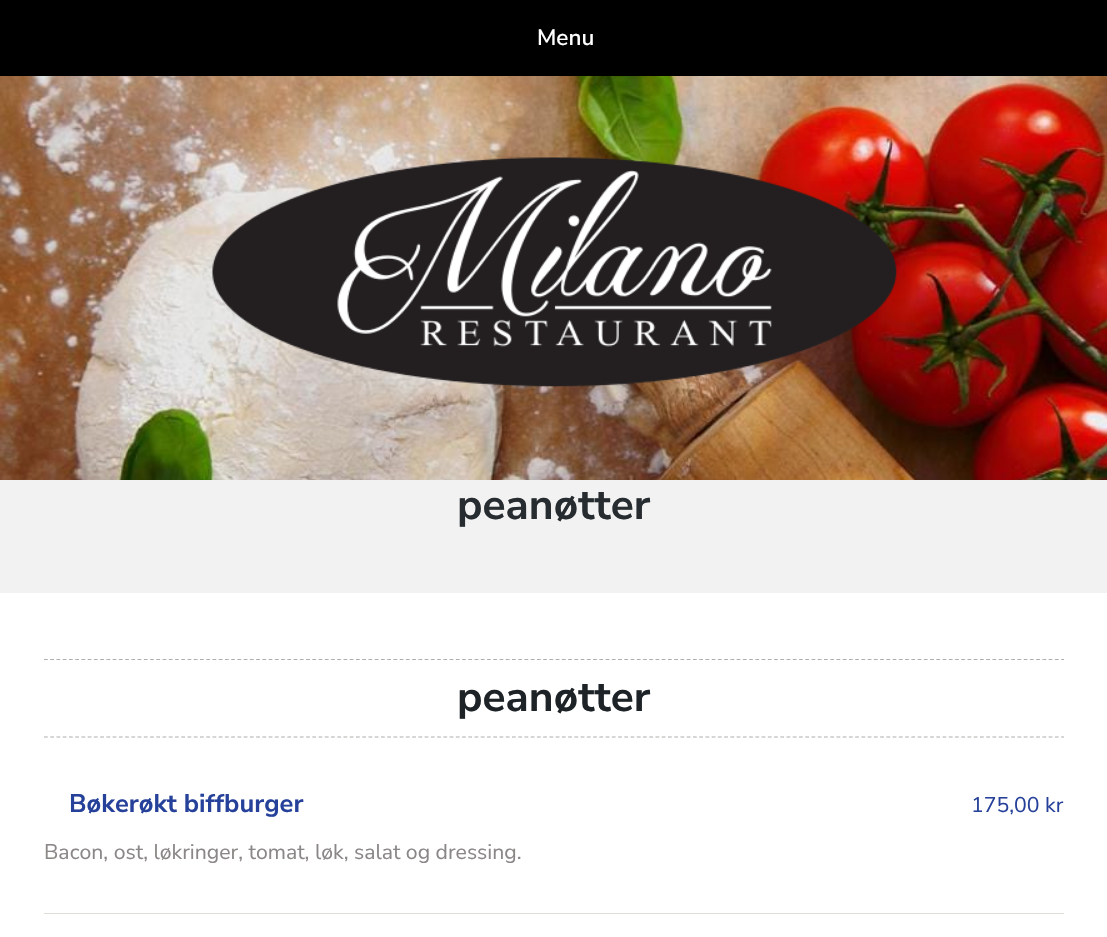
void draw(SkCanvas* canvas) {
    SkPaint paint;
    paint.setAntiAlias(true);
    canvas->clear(0xFFFFFFFF);
    paint.setColor(0xFFF2F2F2);
    canvas->drawRect(SkRect::MakeXYWH(0, 480, 1107, 113), paint);
    canvas->drawImageRect(SkImages::DeferredFromEncodedData(SkData::MakeFromFileName("img1.png")), SkRect::MakeXYWH(0, 76, 1107, 404), SkSamplingOptions());
    paint.setColor(0xFF000000);
    canvas->drawRect(SkRect::MakeXYWH(0, 0, 1107, 76), paint);
    SkFont font1(fontMgr->matchFamilyStyle("Nunito Sans", SkFontStyle(600, SkFontStyle::kNormal_Width, SkFontStyle::kUpright_Slant)), 22.5f);
    font1.setSubpixel(true);
    paint.setColor(0xFFFFFFFF);
    canvas->drawString("Menu", 537, 45, font1, paint);
    canvas->drawImageRect(SkImages::DeferredFromEncodedData(SkData::MakeFromFileName("img2.png")), SkRect::MakeXYWH(212, 157, 685, 230), SkSamplingOptions());
    SkFont font2(fontMgr->matchFamilyStyle("Nunito Sans", SkFontStyle::Bold()), 42.5f);
    font2.setSubpixel(true);
    paint.setColor(0xFF272C30);
    canvas->drawString("peanøtter", 457, 519, font2, paint);
    paint.setStyle(SkPaint::kStroke_Style);
    paint.setStrokeWidth(1.2f);
    paint.setColor(0xFFB0AEAB);
    paint.setPathEffect(SkDashPathEffect::Make({{3.75f, 2.49f}}, 0));
    canvas->drawPath(SkPathBuilder().moveTo(44, 659.5f).lineTo(1064, 659.5f).detach(), paint);
    paint.setPathEffect(nullptr);
    paint.setPathEffect(SkDashPathEffect::Make({{3.75f, 2.49f}}, 0));
    canvas->drawPath(SkPathBuilder().moveTo(44, 737).lineTo(1064, 737).detach(), paint);
    paint.setPathEffect(nullptr);
    paint.setStyle(SkPaint::kFill_Style);
    paint.setColor(0xFF1D2327);
    canvas->drawString("peanøtter", 457, 711, font2, paint);
    paint.setColor(0xFFDEDED7);
    canvas->drawRect(SkRect::MakeXYWH(44, 913, 1020, 1), paint);
    SkFont font3(fontMgr->matchFamilyStyle("Nunito Sans", SkFontStyle::Bold()), 25.5f);
    font3.setSubpixel(true);
    paint.setColor(0xFF26419A);
    canvas->drawString("Bøkerøkt biffburger", 69, 812, font3, paint);
    SkFont font4(fontMgr->matchFamilyStyle("Nunito Sans", SkFontStyle::Normal()), 21.25f);
    font4.setSubpixel(true);
    canvas->drawString("175,00 kr", 971, 812, font4, paint);
    paint.setColor(0xFF8C8787);
    canvas->drawString("Bacon, ost, løkringer, tomat, løk, salat og dressing.", 44, 859, font4, paint);
}
